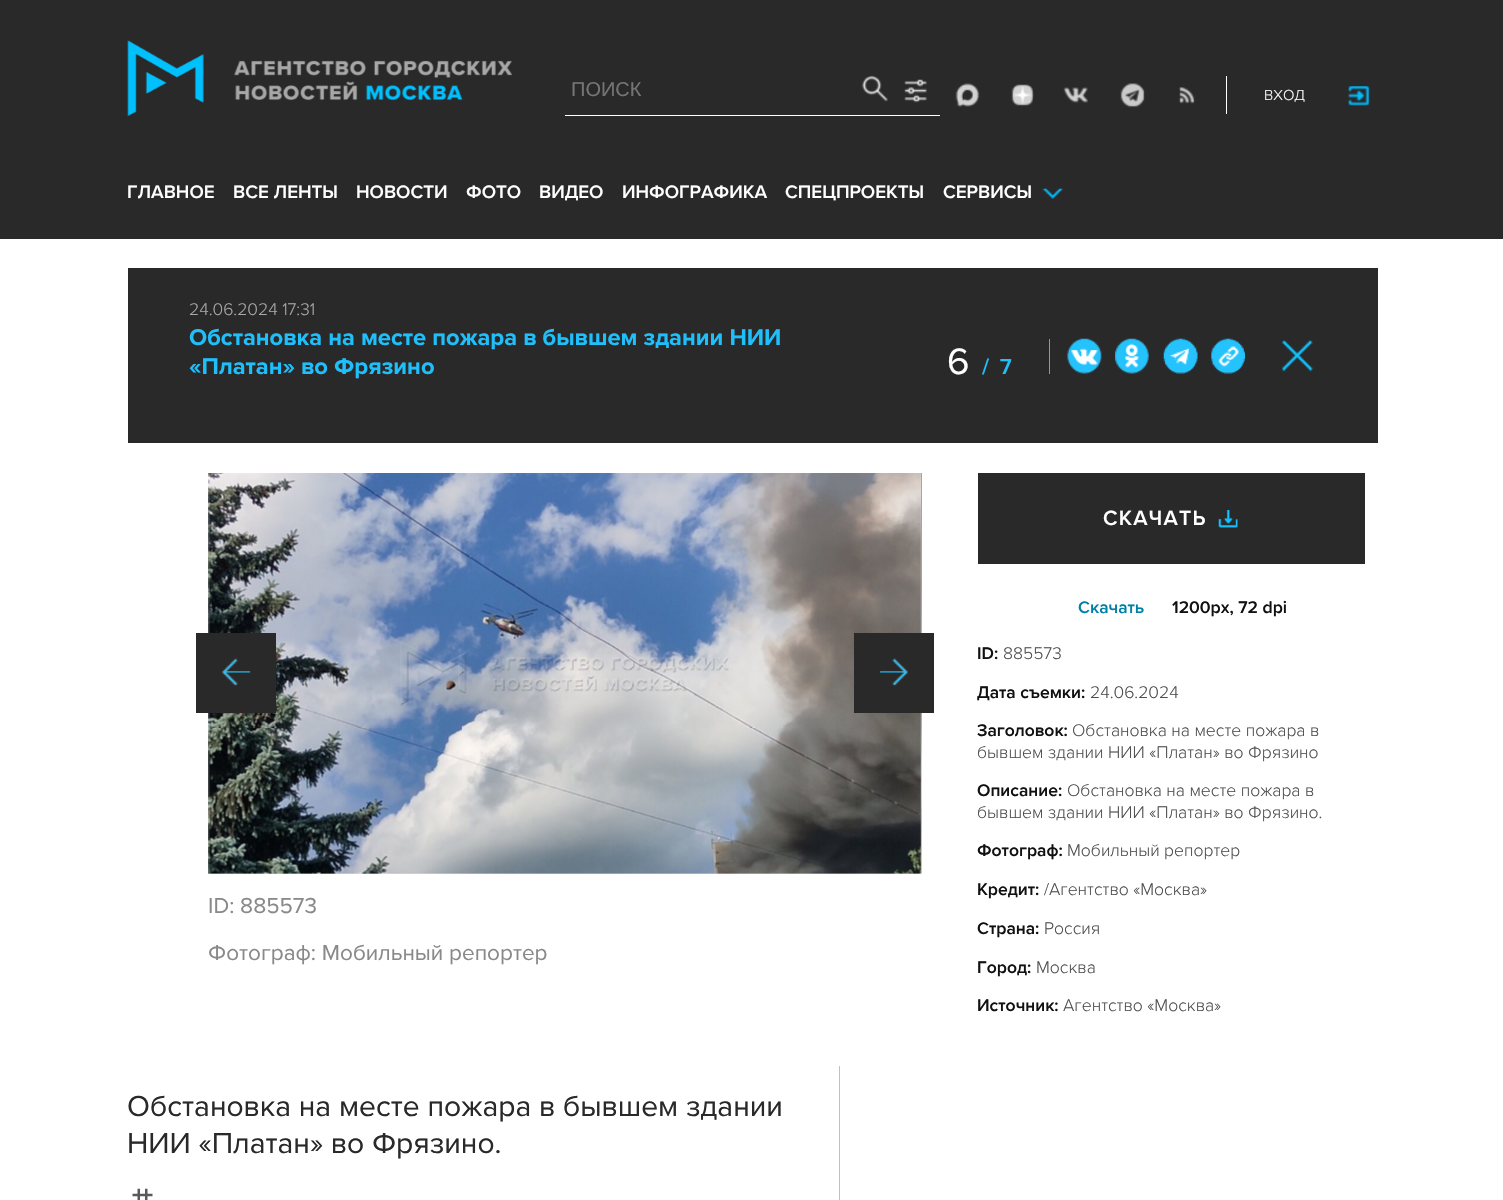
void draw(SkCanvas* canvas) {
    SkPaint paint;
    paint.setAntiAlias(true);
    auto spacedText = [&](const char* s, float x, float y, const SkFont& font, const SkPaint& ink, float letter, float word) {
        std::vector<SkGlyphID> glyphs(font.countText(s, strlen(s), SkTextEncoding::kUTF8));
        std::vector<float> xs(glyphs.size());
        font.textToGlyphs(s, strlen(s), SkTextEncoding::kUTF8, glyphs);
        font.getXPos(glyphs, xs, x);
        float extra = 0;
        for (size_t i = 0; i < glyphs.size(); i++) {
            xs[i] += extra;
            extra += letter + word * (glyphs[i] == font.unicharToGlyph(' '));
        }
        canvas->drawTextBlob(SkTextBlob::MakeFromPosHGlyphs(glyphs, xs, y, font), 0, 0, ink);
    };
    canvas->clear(0xFFFFFFFF);
    paint.setColor(0xFF292929);
    canvas->drawRect(SkRect::MakeXYWH(0, 0, 1503, 239), paint);
    canvas->drawImageRect(SkImages::DeferredFromEncodedData(SkData::MakeFromFileName("img1.png")), SkRect::MakeXYWH(127, 40, 386, 77), SkSamplingOptions());
    paint.setColor(0xFFFFFFFF);
    canvas->drawRect(SkRect::MakeXYWH(565, 115, 375, 1), paint);
    SkFont font1(fontMgr->matchFamilyStyle("Liberation Sans", SkFontStyle::Normal()), 20);
    font1.setSubpixel(true);
    paint.setColor(0xFF757575);
    canvas->drawString("ПОИСК", 571, 96, font1, paint);
    canvas->drawImageRect(SkImages::DeferredFromEncodedData(SkData::MakeFromFileName("img2.png")), SkRect::MakeXYWH(861, 75, 27, 27), SkSamplingOptions());
    canvas->drawImageRect(SkImages::DeferredFromEncodedData(SkData::MakeFromFileName("img3.png")), SkRect::MakeXYWH(904, 79, 23, 24), SkSamplingOptions());
    paint.setColor(0xFFFFFFFF);
    canvas->drawRect(SkRect::MakeXYWH(1226, 76, 1, 38), paint);
    canvas->drawImageRect(SkImages::DeferredFromEncodedData(SkData::MakeFromFileName("img4.png")), SkRect::MakeXYWH(955, 83, 25, 24), SkSamplingOptions());
    canvas->drawImageRect(SkImages::DeferredFromEncodedData(SkData::MakeFromFileName("img5.png")), SkRect::MakeXYWH(1011, 84, 23, 22), SkSamplingOptions());
    canvas->drawImageRect(SkImages::DeferredFromEncodedData(SkData::MakeFromFileName("img6.png")), SkRect::MakeXYWH(1063, 87, 25, 16), SkSamplingOptions());
    canvas->drawImageRect(SkImages::DeferredFromEncodedData(SkData::MakeFromFileName("img7.png")), SkRect::MakeXYWH(1120, 83, 25, 25), SkSamplingOptions());
    canvas->drawImageRect(SkImages::DeferredFromEncodedData(SkData::MakeFromFileName("img8.png")), SkRect::MakeXYWH(1179, 87, 16, 17), SkSamplingOptions());
    canvas->drawImageRect(SkImages::DeferredFromEncodedData(SkData::MakeFromFileName("img9.png")), SkRect::MakeXYWH(1348, 86, 22, 20), SkSamplingOptions());
    SkFont font2(fontMgr->matchFamilyStyle("Proxima Nova", SkFontStyle(300, SkFontStyle::kNormal_Width, SkFontStyle::kUpright_Slant)), 15);
    font2.setSubpixel(true);
    canvas->drawString("ВХОД", 1264, 100, font2, paint);
    SkFont font3(fontMgr->matchFamilyStyle("Proxima Nova", SkFontStyle(600, SkFontStyle::kNormal_Width, SkFontStyle::kUpright_Slant)), 18.75f);
    font3.setSubpixel(true);
    canvas->drawString("ГЛАВНОЕ", 127, 198, font3, paint);
    canvas->drawString("ВСЕ ЛЕНТЫ", 233, 198, font3, paint);
    canvas->drawString("НОВОСТИ", 356, 198, font3, paint);
    canvas->drawString("ФОТО", 466, 198, font3, paint);
    canvas->drawString("ВИДЕО", 539, 198, font3, paint);
    canvas->drawString("ИНФОГРАФИКА", 622, 198, font3, paint);
    canvas->drawString("СПЕЦПРОЕКТЫ", 785, 198, font3, paint);
    canvas->drawString("СЕРВИСЫ", 943, 198, font3, paint);
    canvas->drawImageRect(SkImages::DeferredFromEncodedData(SkData::MakeFromFileName("img10.png")), SkRect::MakeXYWH(1042, 188, 21, 11), SkSamplingOptions());
    paint.setColor(0xFF292929);
    canvas->drawRect(SkRect::MakeXYWH(128, 268, 1250, 175), paint);
    SkFont font4(fontMgr->matchFamilyStyle("Proxima Nova", SkFontStyle(300, SkFontStyle::kNormal_Width, SkFontStyle::kUpright_Slant)), 17.5f);
    font4.setSubpixel(true);
    paint.setColor(0xFFA8A8A8);
    canvas->drawString("24.06.2024 17:31", 189, 315, font4, paint);
    SkFont font5(fontMgr->matchFamilyStyle("Proxima Nova", SkFontStyle::Bold()), 23.75f);
    font5.setSubpixel(true);
    paint.setColor(0xFF1FBFFB);
    canvas->drawString("Обстановка на месте пожара в бывшем здании НИИ", 189, 345, font5, paint);
    canvas->drawString("«Платан» во Фрязино", 189, 374, font5, paint);
    SkFont font6(fontMgr->matchFamilyStyle("Proxima Nova", SkFontStyle::Normal()), 38);
    font6.setSubpixel(true);
    paint.setColor(0xFFFFFFFF);
    spacedText("6", 947, 374, font6, paint, 2.5f, 0);
    SkFont font7(fontMgr->matchFamilyStyle("Proxima Nova", SkFontStyle(600, SkFontStyle::kNormal_Width, SkFontStyle::kUpright_Slant)), 22.5f);
    font7.setSubpixel(true);
    paint.setColor(0xFF1FBFFB);
    spacedText("/ 7", 982, 374, font7, paint, 2.5f, 0);
    canvas->drawRect(SkRect::MakeXYWH(1049, 339, 1, 35), paint);
    canvas->drawImageRect(SkImages::DeferredFromEncodedData(SkData::MakeFromFileName("img11.png")), SkRect::MakeXYWH(1067, 338, 35, 36), SkSamplingOptions());
    canvas->drawImageRect(SkImages::DeferredFromEncodedData(SkData::MakeFromFileName("img12.png")), SkRect::MakeXYWH(1115, 338, 34, 36), SkSamplingOptions());
    canvas->drawImageRect(SkImages::DeferredFromEncodedData(SkData::MakeFromFileName("img13.png")), SkRect::MakeXYWH(1163, 338, 35, 36), SkSamplingOptions());
    canvas->drawImageRect(SkImages::DeferredFromEncodedData(SkData::MakeFromFileName("img14.png")), SkRect::MakeXYWH(1211, 338, 34, 36), SkSamplingOptions());
    canvas->drawImageRect(SkImages::DeferredFromEncodedData(SkData::MakeFromFileName("img15.png")), SkRect::MakeXYWH(1282, 340, 31, 32), SkSamplingOptions());
    paint.setColor(0xFFE9E9E9);
    canvas->drawRect(SkRect::MakeXYWH(209, 473, 712, 401), paint);
    canvas->drawImageRect(SkImages::DeferredFromEncodedData(SkData::MakeFromFileName("img16.png")), SkRect::MakeXYWH(208, 473, 713, 401), SkSamplingOptions());
    canvas->drawImageRect(SkImages::DeferredFromEncodedData(SkData::MakeFromFileName("img17.png")), SkRect::MakeXYWH(921, 473, 1, 401), SkSamplingOptions());
    paint.setColor(0xFF292929);
    canvas->drawRect(SkRect::MakeXYWH(196, 633, 80, 80), paint);
    canvas->drawImageRect(SkImages::DeferredFromEncodedData(SkData::MakeFromFileName("img18.png")), SkRect::MakeXYWH(222, 658, 29, 28), SkSamplingOptions());
    canvas->drawRect(SkRect::MakeXYWH(854, 633, 80, 80), paint);
    canvas->drawImageRect(SkImages::DeferredFromEncodedData(SkData::MakeFromFileName("img19.png")), SkRect::MakeXYWH(879, 658, 29, 28), SkSamplingOptions());
    SkFont font8(fontMgr->matchFamilyStyle("Proxima Nova", SkFontStyle::Normal()), 22.5f);
    font8.setSubpixel(true);
    paint.setColor(0xFF898989);
    canvas->drawString("ID: 885573", 208, 913, font8, paint);
    canvas->drawString("Фотограф: Мобильный репортер", 208, 960, font8, paint);
    paint.setColor(0xFF292929);
    canvas->drawRect(SkRect::MakeXYWH(978, 473, 387, 91), paint);
    canvas->drawImageRect(SkImages::DeferredFromEncodedData(SkData::MakeFromFileName("img20.png")), SkRect::MakeXYWH(1218, 510, 20, 18), SkSamplingOptions());
    SkFont font9(fontMgr->matchFamilyStyle("Proxima Nova", SkFontStyle(600, SkFontStyle::kNormal_Width, SkFontStyle::kUpright_Slant)), 21.25f);
    font9.setSubpixel(true);
    paint.setColor(0xFFFFFFFF);
    spacedText("СКАЧАТЬ", 1103, 525, font9, paint, 1.25f, 0);
    SkFont font10(fontMgr->matchFamilyStyle("Proxima Nova", SkFontStyle(600, SkFontStyle::kNormal_Width, SkFontStyle::kUpright_Slant)), 17.5f);
    font10.setSubpixel(true);
    paint.setColor(0xFF007FA7);
    canvas->drawString("Cкачать", 1078, 613, font10, paint);
    paint.setColor(0xFF111111);
    canvas->drawString("1200px, 72 dpi", 1172, 613, font10, paint);
    canvas->drawString("ID:", 977, 659, font10, paint);
    paint.setColor(0xFF4F4F4F);
    canvas->drawString("885573", 1003, 659, font4, paint);
    paint.setColor(0xFF111111);
    canvas->drawString("Дата съемки:", 977, 698, font10, paint);
    paint.setColor(0xFF4F4F4F);
    canvas->drawString("24.06.2024", 1090, 698, font4, paint);
    paint.setColor(0xFF111111);
    canvas->drawString("Заголовок:", 977, 736, font10, paint);
    paint.setColor(0xFF4F4F4F);
    canvas->drawString("Обстановка на месте пожара в", 1072, 736, font4, paint);
    canvas->drawString("бывшем здании НИИ «Платан» во Фрязино", 977, 758, font4, paint);
    paint.setColor(0xFF111111);
    canvas->drawString("Описание:", 977, 796, font10, paint);
    paint.setColor(0xFF4F4F4F);
    canvas->drawString("Обстановка на месте пожара в", 1067, 796, font4, paint);
    canvas->drawString("бывшем здании НИИ «Платан» во Фрязино.", 977, 818, font4, paint);
    paint.setColor(0xFF111111);
    canvas->drawString("Фотограф:", 977, 856, font10, paint);
    paint.setColor(0xFF4F4F4F);
    canvas->drawString("Мобильный репортер", 1067, 856, font4, paint);
    paint.setColor(0xFF111111);
    canvas->drawString("Кредит:", 977, 895, font10, paint);
    paint.setColor(0xFF4F4F4F);
    canvas->drawString("/Агентство «Москва»", 1044, 895, font4, paint);
    paint.setColor(0xFF111111);
    canvas->drawString("Страна:", 977, 934, font10, paint);
    paint.setColor(0xFF4F4F4F);
    canvas->drawString("Россия", 1044, 934, font4, paint);
    paint.setColor(0xFF111111);
    canvas->drawString("Город:", 977, 973, font10, paint);
    paint.setColor(0xFF4F4F4F);
    canvas->drawString("Москва", 1036, 973, font4, paint);
    paint.setColor(0xFF111111);
    canvas->drawString("Источник:", 977, 1011, font10, paint);
    paint.setColor(0xFF4F4F4F);
    canvas->drawString("Агентство «Москва»", 1063, 1011, font4, paint);
    paint.setColor(0xFFC1C1C1);
    canvas->drawRect(SkRect::MakeXYWH(839, 1066, 1, 134), paint);
    SkFont font11(fontMgr->matchFamilyStyle("Proxima Nova", SkFontStyle::Normal()), 30);
    font11.setSubpixel(true);
    paint.setColor(0xFF292929);
    canvas->drawString("Обстановка на месте пожара в бывшем здании", 127, 1116, font11, paint);
    canvas->drawString("НИИ «Платан» во Фрязино.", 127, 1153, font11, paint);
    canvas->drawImageRect(SkImages::DeferredFromEncodedData(SkData::MakeFromFileName("img21.png")), SkRect::MakeXYWH(132, 1188, 21, 12), SkSamplingOptions());
}
